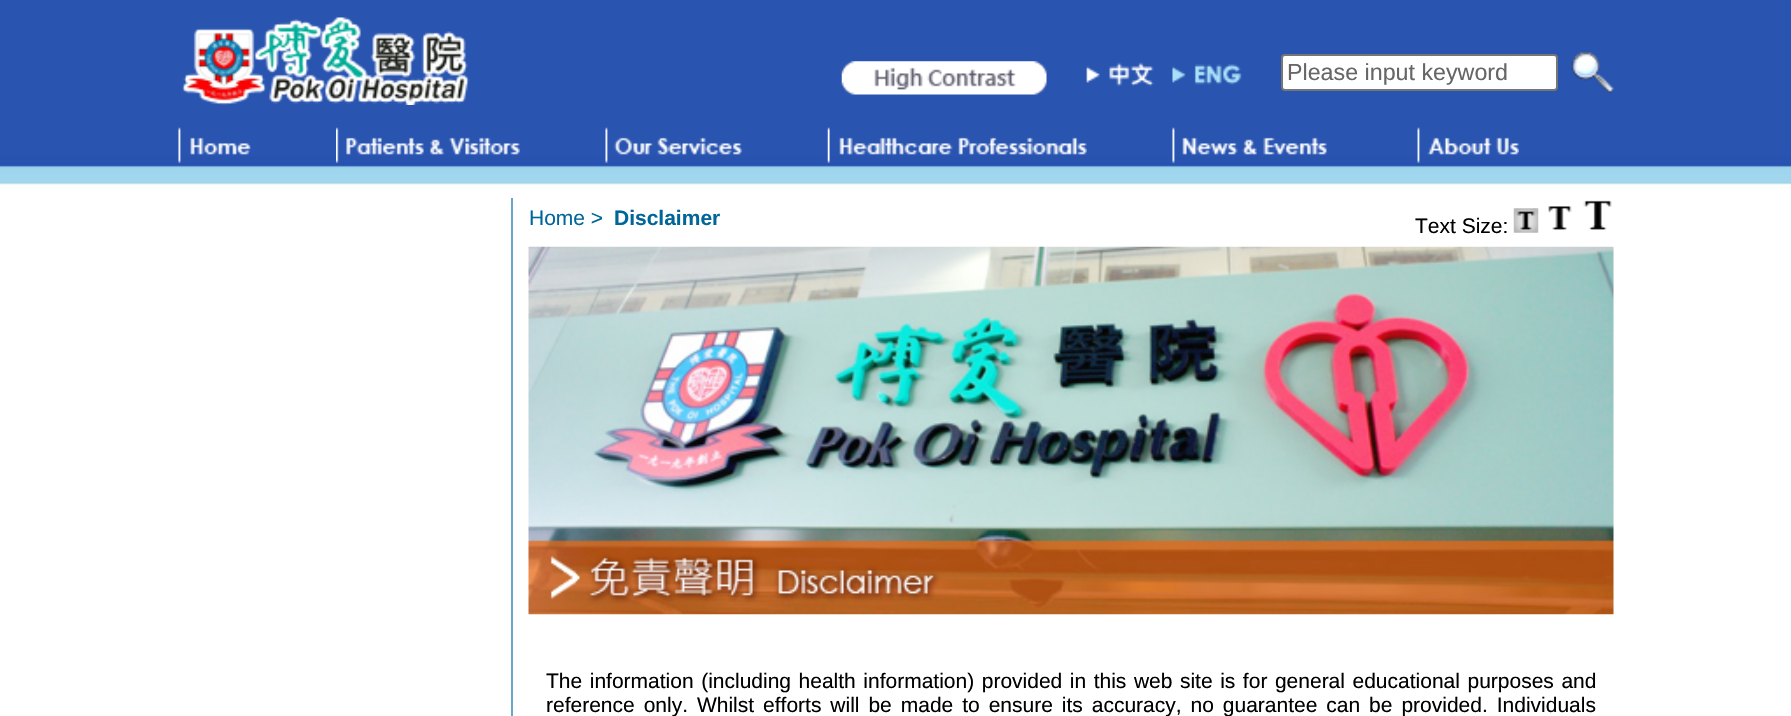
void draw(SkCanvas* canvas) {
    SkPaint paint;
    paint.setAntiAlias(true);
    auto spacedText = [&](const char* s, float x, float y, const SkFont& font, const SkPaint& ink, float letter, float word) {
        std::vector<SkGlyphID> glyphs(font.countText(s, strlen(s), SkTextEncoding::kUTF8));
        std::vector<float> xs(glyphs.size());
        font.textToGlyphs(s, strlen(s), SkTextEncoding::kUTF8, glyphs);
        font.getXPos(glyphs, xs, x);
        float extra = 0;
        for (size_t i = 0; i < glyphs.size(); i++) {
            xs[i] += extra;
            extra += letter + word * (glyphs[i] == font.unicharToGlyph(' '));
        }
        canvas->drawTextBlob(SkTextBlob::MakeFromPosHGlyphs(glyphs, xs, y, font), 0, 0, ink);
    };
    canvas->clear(0xFFFFFFFF);
    canvas->drawImageRect(SkImages::DeferredFromEncodedData(SkData::MakeFromFileName("img1.png")), SkRect::MakeXYWH(0, 0, 1791, 189), SkSamplingOptions());
    canvas->drawImageRect(SkImages::DeferredFromEncodedData(SkData::MakeFromFileName("img2.png")), SkRect::MakeXYWH(841, 61, 206, 34), SkSamplingOptions());
    canvas->drawImageRect(SkImages::DeferredFromEncodedData(SkData::MakeFromFileName("img3.png")), SkRect::MakeXYWH(182, 17, 288, 88), SkSamplingOptions());
    canvas->drawImageRect(SkImages::DeferredFromEncodedData(SkData::MakeFromFileName("img4.png")), SkRect::MakeXYWH(1086, 62, 68, 25), SkSamplingOptions());
    canvas->drawImageRect(SkImages::DeferredFromEncodedData(SkData::MakeFromFileName("img5.png")), SkRect::MakeXYWH(1172, 64, 70, 21), SkSamplingOptions());
    paint.setColor(0xFFFFFFFF);
    canvas->drawRoundRect(SkRect::MakeXYWH(1282, 55, 275, 35), 3, 3, paint);
    paint.setStyle(SkPaint::kStroke_Style);
    paint.setStrokeWidth(2);
    paint.setColor(0xFF767676);
    canvas->drawRoundRect(SkRect::MakeXYWH(1282, 55, 275, 35), 3, 3, paint);
    SkFont font1(fontMgr->matchFamilyStyle("Liberation Sans", SkFontStyle::Normal()), 23.25f);
    font1.setSubpixel(true);
    paint.setStyle(SkPaint::kFill_Style);
    paint.setColor(0xFF666666);
    canvas->drawString("Please input keyword", 1287, 80, font1, paint);
    canvas->drawImageRect(SkImages::DeferredFromEncodedData(SkData::MakeFromFileName("img6.png")), SkRect::MakeXYWH(1571, 52, 43, 42), SkSamplingOptions());
    canvas->drawImageRect(SkImages::DeferredFromEncodedData(SkData::MakeFromFileName("img7.png")), SkRect::MakeXYWH(178, 127, 73, 36), SkSamplingOptions());
    canvas->drawImageRect(SkImages::DeferredFromEncodedData(SkData::MakeFromFileName("img8.png")), SkRect::MakeXYWH(336, 127, 184, 36), SkSamplingOptions());
    canvas->drawImageRect(SkImages::DeferredFromEncodedData(SkData::MakeFromFileName("img9.png")), SkRect::MakeXYWH(605, 127, 137, 36), SkSamplingOptions());
    canvas->drawImageRect(SkImages::DeferredFromEncodedData(SkData::MakeFromFileName("img10.png")), SkRect::MakeXYWH(827, 127, 260, 36), SkSamplingOptions());
    canvas->drawImageRect(SkImages::DeferredFromEncodedData(SkData::MakeFromFileName("img11.png")), SkRect::MakeXYWH(1172, 127, 155, 36), SkSamplingOptions());
    canvas->drawImageRect(SkImages::DeferredFromEncodedData(SkData::MakeFromFileName("img12.png")), SkRect::MakeXYWH(1417, 127, 102, 36), SkSamplingOptions());
    paint.setColor(0xFF65A7CD);
    canvas->drawRect(SkRect::MakeXYWH(511, 198, 2, 518), paint);
    SkFont font2(fontMgr->matchFamilyStyle("Liberation Sans", SkFontStyle::Normal()), 21);
    font2.setSubpixel(true);
    paint.setColor(0xFF006699);
    canvas->drawString("Home >", 529, 225, font2, paint);
    SkFont font3(fontMgr->matchFamilyStyle("Liberation Sans", SkFontStyle::Bold()), 21);
    font3.setSubpixel(true);
    canvas->drawString("Disclaimer", 614, 225, font3, paint);
    paint.setColor(0xFF000000);
    canvas->drawString("Text Size:", 1415, 233, font2, paint);
    canvas->drawImageRect(SkImages::DeferredFromEncodedData(SkData::MakeFromFileName("img13.png")), SkRect::MakeXYWH(1513, 208, 26, 25), SkSamplingOptions());
    canvas->drawImageRect(SkImages::DeferredFromEncodedData(SkData::MakeFromFileName("img14.png")), SkRect::MakeXYWH(1548, 206, 24, 24), SkSamplingOptions());
    canvas->drawImageRect(SkImages::DeferredFromEncodedData(SkData::MakeFromFileName("img15.png")), SkRect::MakeXYWH(1583, 200, 29, 30), SkSamplingOptions());
    canvas->drawImageRect(SkImages::DeferredFromEncodedData(SkData::MakeFromFileName("img16.png")), SkRect::MakeXYWH(528, 246, 1086, 369), SkSamplingOptions());
    spacedText("The information (including health information) provided in this web site is for general educational purposes and", 546, 688, font2, paint, 0, 1.7f);
    spacedText("reference only. Whilst efforts will be made to ensure its accuracy, no guarantee can be provided. Individuals", 546, 712, font2, paint, 0, 3.1f);
}
